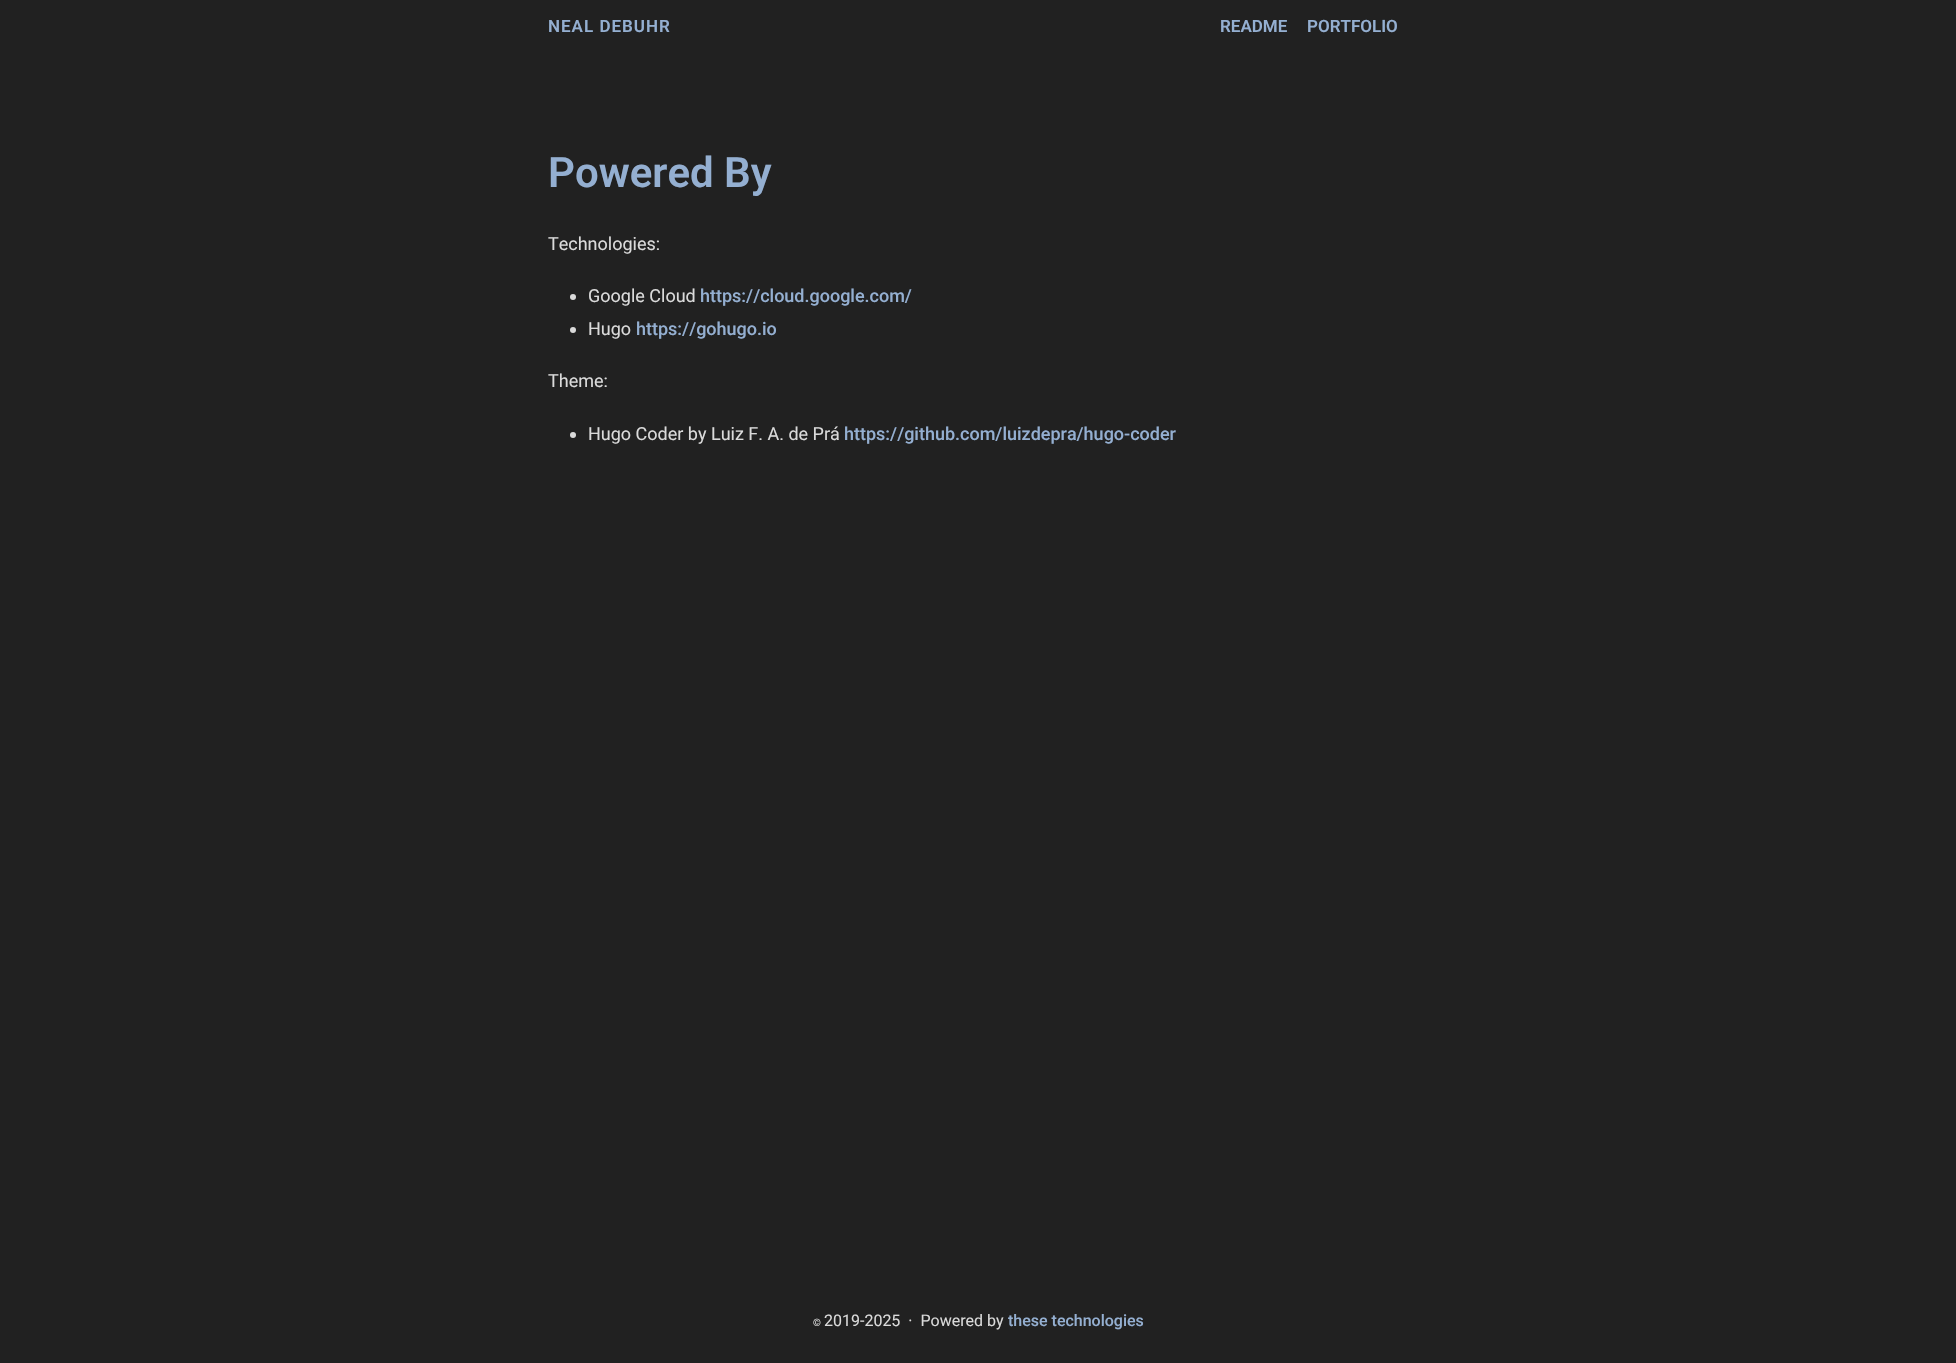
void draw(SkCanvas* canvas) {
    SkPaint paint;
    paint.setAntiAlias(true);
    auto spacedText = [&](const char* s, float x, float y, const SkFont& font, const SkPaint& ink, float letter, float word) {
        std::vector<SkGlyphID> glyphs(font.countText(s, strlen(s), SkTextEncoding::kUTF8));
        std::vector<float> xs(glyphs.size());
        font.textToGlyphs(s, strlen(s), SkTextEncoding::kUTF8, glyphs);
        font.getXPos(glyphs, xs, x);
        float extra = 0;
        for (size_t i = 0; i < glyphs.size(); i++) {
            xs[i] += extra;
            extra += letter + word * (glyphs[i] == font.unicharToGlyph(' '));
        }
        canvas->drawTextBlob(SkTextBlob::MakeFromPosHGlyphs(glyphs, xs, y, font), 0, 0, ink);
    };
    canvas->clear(0xFF212121);
    SkFont font1(fontMgr->matchFamilyStyle("Roboto", SkFontStyle(600, SkFontStyle::kNormal_Width, SkFontStyle::kUpright_Slant)), 17);
    font1.setSubpixel(true);
    paint.setColor(0xFF94AFD1);
    spacedText("NEAL DEBUHR", 548, 32, font1, paint, 1, 0);
    canvas->drawString("README", 1220, 32, font1, paint);
    canvas->drawString("PORTFOLIO", 1307, 32, font1, paint);
    SkFont font2(fontMgr->matchFamilyStyle("Roboto", SkFontStyle(600, SkFontStyle::kNormal_Width, SkFontStyle::kUpright_Slant)), 42);
    font2.setSubpixel(true);
    canvas->drawString("Powered By", 548, 187, font2, paint);
    SkFont font3(fontMgr->matchFamilyStyle("Roboto", SkFontStyle::Normal()), 18);
    font3.setSubpixel(true);
    paint.setColor(0xFFDADADA);
    canvas->drawString("Technologies:", 548, 250, font3, paint);
    canvas->drawCircle(573, 297, 3, paint);
    canvas->drawString("Google Cloud", 588, 302, font3, paint);
    SkFont font4(fontMgr->matchFamilyStyle("Roboto", SkFontStyle(500, SkFontStyle::kNormal_Width, SkFontStyle::kUpright_Slant)), 18);
    font4.setSubpixel(true);
    paint.setColor(0xFF94AFD1);
    canvas->drawString("https://cloud.google.com/", 700, 302, font4, paint);
    paint.setColor(0xFFDADADA);
    canvas->drawCircle(573, 330, 3, paint);
    canvas->drawString("Hugo", 588, 335, font3, paint);
    paint.setColor(0xFF94AFD1);
    canvas->drawString("https://gohugo.io", 636, 335, font4, paint);
    paint.setColor(0xFFDADADA);
    canvas->drawString("Theme:", 548, 387, font3, paint);
    canvas->drawCircle(573, 435, 3, paint);
    canvas->drawString("Hugo Coder by Luiz F. A. de Prá", 588, 440, font3, paint);
    paint.setColor(0xFF94AFD1);
    canvas->drawString("https://github.com/luizdepra/hugo-coder", 844, 440, font4, paint);
    SkFont font5(fontMgr->matchFamilyStyle("Roboto", SkFontStyle::Normal()), 10);
    font5.setSubpixel(true);
    paint.setColor(0xFFDADADA);
    canvas->drawString("©", 813, 1326, font5, paint);
    SkFont font6(fontMgr->matchFamilyStyle("Roboto", SkFontStyle::Normal()), 16);
    font6.setSubpixel(true);
    canvas->drawString("2019-2025  ·  Powered by", 824, 1326, font6, paint);
    SkFont font7(fontMgr->matchFamilyStyle("Roboto", SkFontStyle(500, SkFontStyle::kNormal_Width, SkFontStyle::kUpright_Slant)), 16);
    font7.setSubpixel(true);
    paint.setColor(0xFF94AFD1);
    canvas->drawString("these technologies", 1008, 1326, font7, paint);
}
